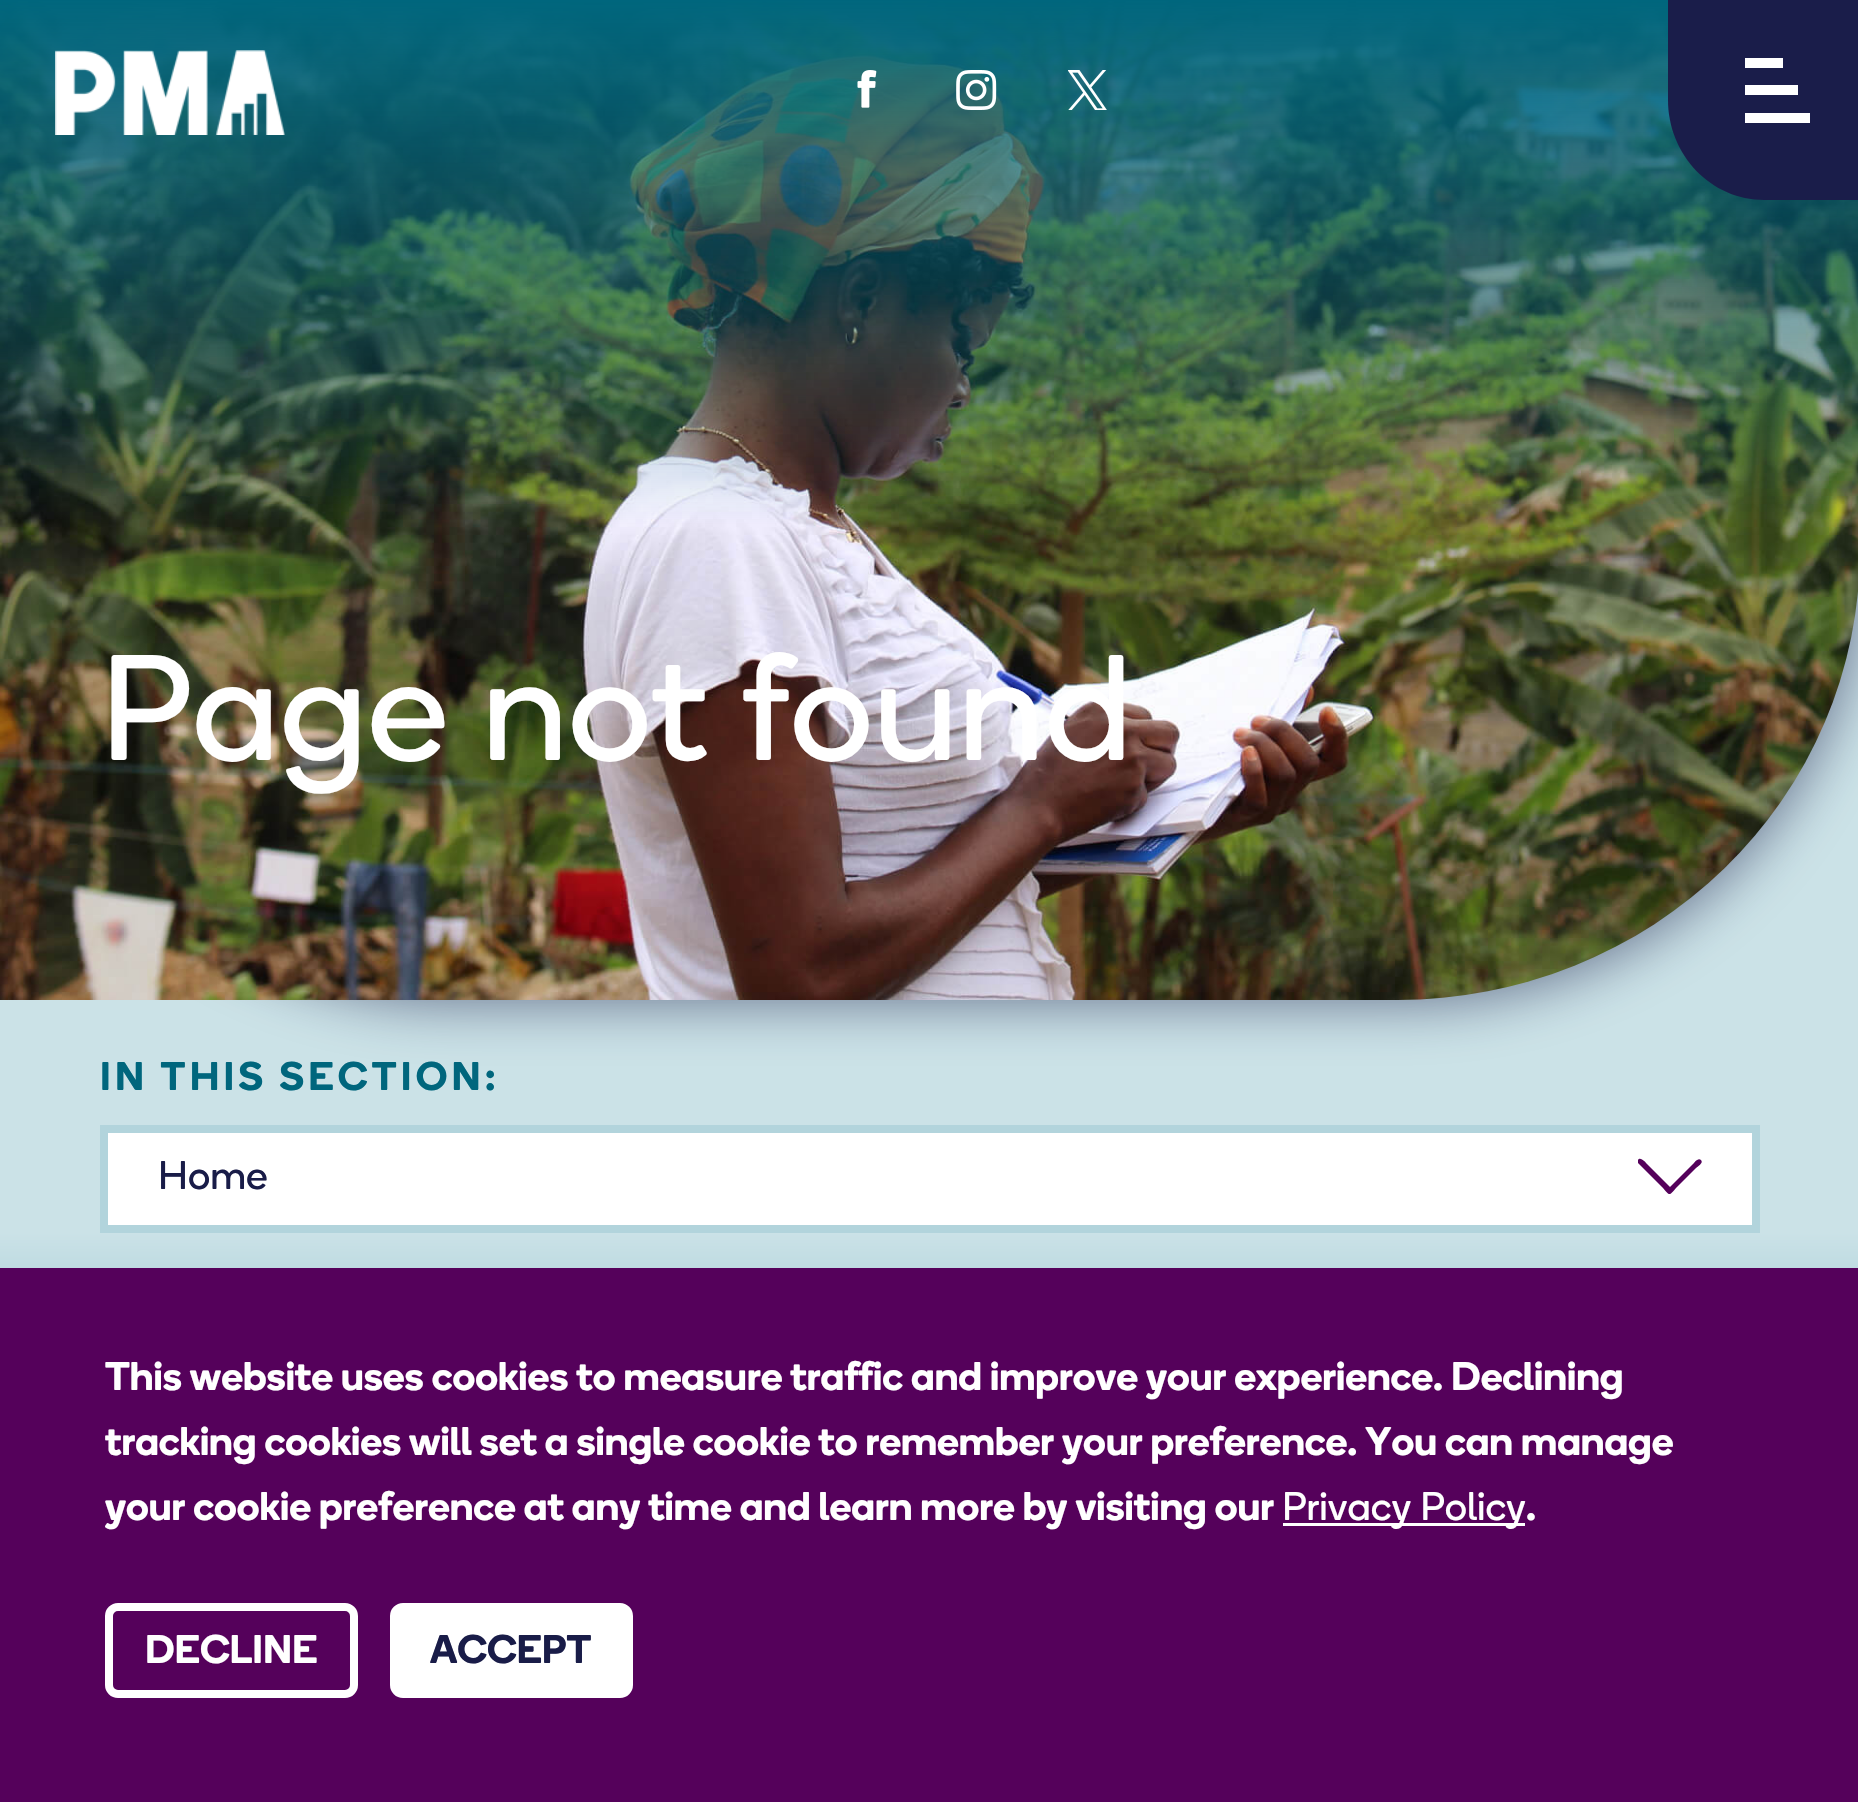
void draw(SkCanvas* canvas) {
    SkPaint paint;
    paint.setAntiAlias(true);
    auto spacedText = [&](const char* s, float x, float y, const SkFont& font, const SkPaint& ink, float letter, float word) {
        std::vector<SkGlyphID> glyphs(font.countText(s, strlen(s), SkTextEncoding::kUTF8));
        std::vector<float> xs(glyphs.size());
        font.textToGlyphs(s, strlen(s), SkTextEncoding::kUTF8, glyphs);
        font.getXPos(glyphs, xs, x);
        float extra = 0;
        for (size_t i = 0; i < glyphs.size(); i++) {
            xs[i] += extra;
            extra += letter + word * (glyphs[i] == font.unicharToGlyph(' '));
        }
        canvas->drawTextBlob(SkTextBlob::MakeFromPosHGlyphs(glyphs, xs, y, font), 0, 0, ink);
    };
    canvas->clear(0xFFFFFFFF);
    {
        const SkColor colors[] = {0xFFB2D4DC, 0xFFCBE2E7};
        const float stops[] = {0, 0.1f};
        const SkPoint ends[] = {{930, 1308}, {930, 550}};
        paint.setShader(SkGradientShader::MakeLinear(ends, colors, stops, 2, SkTileMode::kClamp));
        paint.setAlpha(255);
    }
    canvas->drawRect(SkRect::MakeXYWH(0, 591, 1858, 677), paint);
    paint.setShader(nullptr);
    paint.setColor(0x99191C48);
    paint.setMaskFilter(SkMaskFilter::MakeBlur(kNormal_SkBlurStyle, 30));
    canvas->drawRoundRect(SkRect::MakeXYWH(0, 0, 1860, 1000), 450, 450, paint);
    paint.setMaskFilter(nullptr);
    canvas->drawImageRect(SkImages::DeferredFromEncodedData(SkData::MakeFromFileName("img5.png")), SkRect::MakeXYWH(0, 0, 1858, 1000), SkSamplingOptions());
    canvas->drawImageRect(SkImages::DeferredFromEncodedData(SkData::MakeFromFileName("img1.png")), SkRect::MakeXYWH(55, 50, 230, 85), SkSamplingOptions());
    canvas->drawImageRect(SkImages::DeferredFromEncodedData(SkData::MakeFromFileName("img2.png")), SkRect::MakeXYWH(857, 70, 20, 38), SkSamplingOptions());
    canvas->drawImageRect(SkImages::DeferredFromEncodedData(SkData::MakeFromFileName("img3.png")), SkRect::MakeXYWH(956, 70, 41, 40), SkSamplingOptions());
    canvas->drawImageRect(SkImages::DeferredFromEncodedData(SkData::MakeFromFileName("img4.png")), SkRect::MakeXYWH(1068, 70, 39, 40), SkSamplingOptions());
    paint.setColor(0xFF1A1D4A);
    canvas->drawPath(SkPathBuilder().moveTo(1668, 0).lineTo(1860, 0).lineTo(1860, 200).lineTo(1764, 200).cubicTo(1711, 200, 1668, 155, 1668, 100).close().detach(), paint);
    paint.setColor(0xFFFFFFFF);
    canvas->drawRect(SkRect::MakeXYWH(1745, 58, 38, 10), paint);
    canvas->drawRect(SkRect::MakeXYWH(1745, 85, 53, 10), paint);
    canvas->drawRect(SkRect::MakeXYWH(1745, 113, 65, 10), paint);
    SkFont font1(fontMgr->matchFamilyStyle("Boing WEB", SkFontStyle::Normal()), 150);
    font1.setSubpixel(true);
    canvas->drawString("Page not found", 100, 760, font1, paint);
    SkFont font2(fontMgr->matchFamilyStyle("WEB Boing", SkFontStyle(600, SkFontStyle::kNormal_Width, SkFontStyle::kUpright_Slant)), 40);
    font2.setSubpixel(true);
    paint.setColor(0xFF00667D);
    spacedText("IN THIS SECTION:", 100, 1090, font2, paint, 4.25f, 0);
    paint.setColor(0xFFFFFFFF);
    canvas->drawRect(SkRect::MakeXYWH(104, 1129, 1652, 100), paint);
    paint.setStyle(SkPaint::kStroke_Style);
    paint.setStrokeWidth(8);
    paint.setColor(0xFFB2D4DC);
    canvas->drawRect(SkRect::MakeXYWH(104, 1129, 1652, 100), paint);
    SkFont font3(fontMgr->matchFamilyStyle("Boing WEB", SkFontStyle::Normal()), 40);
    font3.setSubpixel(true);
    paint.setStyle(SkPaint::kFill_Style);
    paint.setColor(0xFF191C48);
    canvas->drawString("Home", 158, 1189, font3, paint);
    paint.setColor(0xFF55015B);
    canvas->drawPath(SkPathBuilder().moveTo(1701, 1160).cubicTo(1704, 1163, 1697, 1167, 1696, 1168).lineTo(1676, 1188).cubicTo(1669, 1196, 1670, 1196, 1663, 1188).lineTo(1638, 1163).lineTo(1638, 1161).cubicTo(1638, 1160, 1638, 1159, 1639, 1159).cubicTo(1642, 1158, 1646, 1163, 1647, 1164).lineTo(1670, 1187).lineTo(1693, 1164).cubicTo(1694, 1163, 1698, 1157, 1701, 1160).close().detach(), paint);
    canvas->drawRect(SkRect::MakeXYWH(0, 1268, 1858, 534), paint);
    paint.setColor(0xFFFFFFFF);
    canvas->drawString("This website uses cookies to measure traffic and improve your experience. Declining", 105, 1390, font2, paint);
    canvas->drawString("tracking cookies will set a single cookie to remember your preference. You can manage", 105, 1455, font2, paint);
    canvas->drawString("your cookie preference at any time and learn more by visiting our", 105, 1520, font2, paint);
    canvas->drawRect(SkRect::MakeXYWH(1283, 1523, 242, 3), paint);
    canvas->drawString("Privacy Policy", 1282, 1520, font3, paint);
    canvas->drawString(".", 1526, 1520, font2, paint);
    paint.setStyle(SkPaint::kStroke_Style);
    canvas->drawRoundRect(SkRect::MakeXYWH(109, 1607, 245, 87), 9, 9, paint);
    paint.setStyle(SkPaint::kFill_Style);
    canvas->drawString("DECLINE", 145, 1663, font2, paint);
    canvas->drawRoundRect(SkRect::MakeXYWH(394, 1607, 235, 87), 9, 9, paint);
    paint.setStyle(SkPaint::kStroke_Style);
    canvas->drawRoundRect(SkRect::MakeXYWH(394, 1607, 235, 87), 9, 9, paint);
    paint.setStyle(SkPaint::kFill_Style);
    paint.setColor(0xFF191C48);
    canvas->drawString("ACCEPT", 430, 1663, font2, paint);
}
